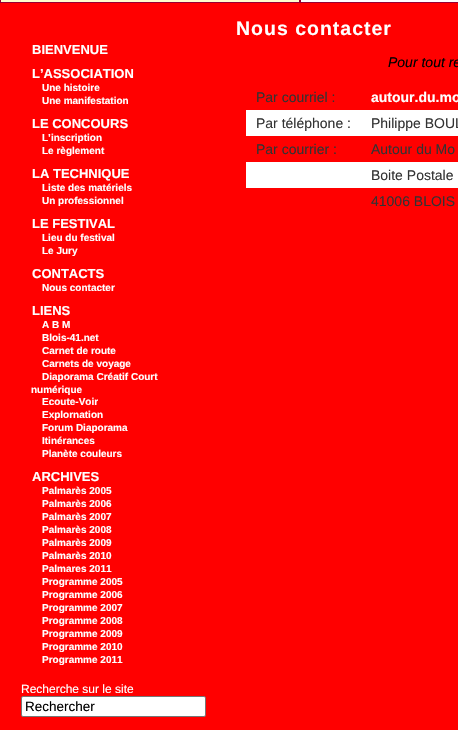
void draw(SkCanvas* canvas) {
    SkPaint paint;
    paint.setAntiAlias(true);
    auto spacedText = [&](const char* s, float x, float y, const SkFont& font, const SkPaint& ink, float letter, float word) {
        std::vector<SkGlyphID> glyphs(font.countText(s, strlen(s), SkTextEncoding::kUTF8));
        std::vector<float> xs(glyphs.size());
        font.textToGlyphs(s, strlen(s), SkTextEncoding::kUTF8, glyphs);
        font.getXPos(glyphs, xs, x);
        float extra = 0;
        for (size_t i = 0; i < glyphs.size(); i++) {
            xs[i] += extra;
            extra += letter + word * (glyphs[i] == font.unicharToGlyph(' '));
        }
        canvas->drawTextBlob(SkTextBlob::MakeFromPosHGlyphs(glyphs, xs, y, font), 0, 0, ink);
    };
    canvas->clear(0xFFFF0000);
    paint.setColor(0xFFFFFFCC);
    canvas->drawRect(SkRect::MakeXYWH(0.5f, -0.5f, 299, 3), paint);
    paint.setStyle(SkPaint::kStroke_Style);
    paint.setStrokeWidth(1);
    paint.setColor(0xFF990033);
    canvas->drawRect(SkRect::MakeXYWH(0.5f, -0.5f, 299, 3), paint);
    paint.setStyle(SkPaint::kFill_Style);
    paint.setColor(0xFFFFFFFF);
    canvas->drawRect(SkRect::MakeXYWH(300.5f, -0.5f, 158, 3), paint);
    paint.setStyle(SkPaint::kStroke_Style);
    paint.setColor(0xFF990033);
    canvas->drawRect(SkRect::MakeXYWH(300.5f, -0.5f, 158, 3), paint);
    SkFont font1(fontMgr->matchFamilyStyle("Liberation Sans", SkFontStyle::Bold()), 13);
    font1.setSubpixel(true);
    paint.setStyle(SkPaint::kFill_Style);
    paint.setColor(0xFFFFFFFF);
    canvas->drawString("BIENVENUE", 32, 54, font1, paint);
    canvas->drawString("L’ASSOCIATION", 32, 78, font1, paint);
    SkFont font2(fontMgr->matchFamilyStyle("Liberation Sans", SkFontStyle::Bold()), 10);
    font2.setSubpixel(true);
    canvas->drawString("Une histoire", 42, 91, font2, paint);
    canvas->drawString("Une manifestation", 42, 104, font2, paint);
    canvas->drawString("LE CONCOURS", 32, 128, font1, paint);
    canvas->drawString("L’inscription", 42, 141, font2, paint);
    canvas->drawString("Le règlement", 42, 154, font2, paint);
    canvas->drawString("LA TECHNIQUE", 32, 178, font1, paint);
    canvas->drawString("Liste des matériels", 42, 191, font2, paint);
    canvas->drawString("Un professionnel", 42, 204, font2, paint);
    canvas->drawString("LE FESTIVAL", 32, 228, font1, paint);
    canvas->drawString("Lieu du festival", 42, 241, font2, paint);
    canvas->drawString("Le Jury", 42, 254, font2, paint);
    canvas->drawString("CONTACTS", 32, 278, font1, paint);
    canvas->drawString("Nous contacter", 42, 291, font2, paint);
    canvas->drawString("LIENS", 32, 315, font1, paint);
    canvas->drawString("A B M", 42, 328, font2, paint);
    canvas->drawString("Blois-41.net", 42, 341, font2, paint);
    canvas->drawString("Carnet de route", 42, 354, font2, paint);
    canvas->drawString("Carnets de voyage", 42, 367, font2, paint);
    canvas->drawString("Diaporama Créatif Court", 42, 380, font2, paint);
    canvas->drawString("numérique", 31, 393, font2, paint);
    canvas->drawString("Ecoute-Voir", 42, 405, font2, paint);
    canvas->drawString("Explornation", 42, 418, font2, paint);
    canvas->drawString("Forum Diaporama", 42, 431, font2, paint);
    canvas->drawString("Itinérances", 42, 444, font2, paint);
    canvas->drawString("Planète couleurs", 42, 457, font2, paint);
    canvas->drawString("ARCHIVES", 32, 481, font1, paint);
    canvas->drawString("Palmarès 2005", 42, 494, font2, paint);
    canvas->drawString("Palmarès 2006", 42, 507, font2, paint);
    canvas->drawString("Palmarès 2007", 42, 520, font2, paint);
    canvas->drawString("Palmarès 2008", 42, 533, font2, paint);
    canvas->drawString("Palmarès 2009", 42, 546, font2, paint);
    canvas->drawString("Palmarès 2010", 42, 559, font2, paint);
    canvas->drawString("Palmares 2011", 42, 572, font2, paint);
    canvas->drawString("Programme 2005", 42, 585, font2, paint);
    canvas->drawString("Programme 2006", 42, 598, font2, paint);
    canvas->drawString("Programme 2007", 42, 611, font2, paint);
    canvas->drawString("Programme 2008", 42, 624, font2, paint);
    canvas->drawString("Programme 2009", 42, 637, font2, paint);
    canvas->drawString("Programme 2010", 42, 650, font2, paint);
    canvas->drawString("Programme 2011", 42, 663, font2, paint);
    SkFont font3(fontMgr->matchFamilyStyle("Liberation Sans", SkFontStyle::Normal()), 12);
    font3.setSubpixel(true);
    canvas->drawString("Recherche sur le site", 21, 693, font3, paint);
    canvas->drawRoundRect(SkRect::MakeXYWH(21.5f, 696.5f, 184, 20), 1.5f, 1.5f, paint);
    paint.setStyle(SkPaint::kStroke_Style);
    paint.setColor(0xFF767676);
    canvas->drawRoundRect(SkRect::MakeXYWH(21.5f, 696.5f, 184, 20), 1.5f, 1.5f, paint);
    SkFont font4(fontMgr->matchFamilyStyle("Liberation Sans", SkFontStyle::Normal()), 13.5f);
    font4.setSubpixel(true);
    paint.setStyle(SkPaint::kFill_Style);
    paint.setColor(0xFF000000);
    canvas->drawString("Rechercher", 25, 711, font4, paint);
    SkFont font5(fontMgr->matchFamilyStyle("Liberation Sans", SkFontStyle::Bold()), 19.5f);
    font5.setSubpixel(true);
    paint.setColor(0xFFFFFFFF);
    spacedText("Nous contacter", 236, 35, font5, paint, 1, 0);
    SkFont font6(fontMgr->matchFamilyStyle("Liberation Sans", SkFontStyle::Italic()), 14);
    font6.setSubpixel(true);
    paint.setColor(0xFF000000);
    canvas->drawString("Pour tout re", 388, 67, font6, paint);
    SkFont font7(fontMgr->matchFamilyStyle("Liberation Sans", SkFontStyle::Normal()), 14);
    font7.setSubpixel(true);
    paint.setColor(0xFF333333);
    canvas->drawString("Par courriel :", 256, 102, font7, paint);
    SkFont font8(fontMgr->matchFamilyStyle("Liberation Sans", SkFontStyle::Bold()), 14);
    font8.setSubpixel(true);
    paint.setColor(0xFFFFFFFF);
    canvas->drawString("autour.du.mo", 371, 102, font8, paint);
    canvas->drawRect(SkRect::MakeXYWH(246, 110, 212, 26), paint);
    paint.setColor(0xFF333333);
    canvas->drawString("Par téléphone :", 256, 128, font7, paint);
    canvas->drawString("Philippe BOUL", 371, 128, font7, paint);
    canvas->drawString("Par courrier :", 256, 154, font7, paint);
    canvas->drawString("Autour du Mo", 371, 154, font7, paint);
    paint.setColor(0xFFFFFFFF);
    canvas->drawRect(SkRect::MakeXYWH(246, 162, 212, 26), paint);
    paint.setColor(0xFF333333);
    canvas->drawString("Boite Postale", 371, 180, font7, paint);
    canvas->drawString("41006 BLOIS", 371, 206, font7, paint);
}
